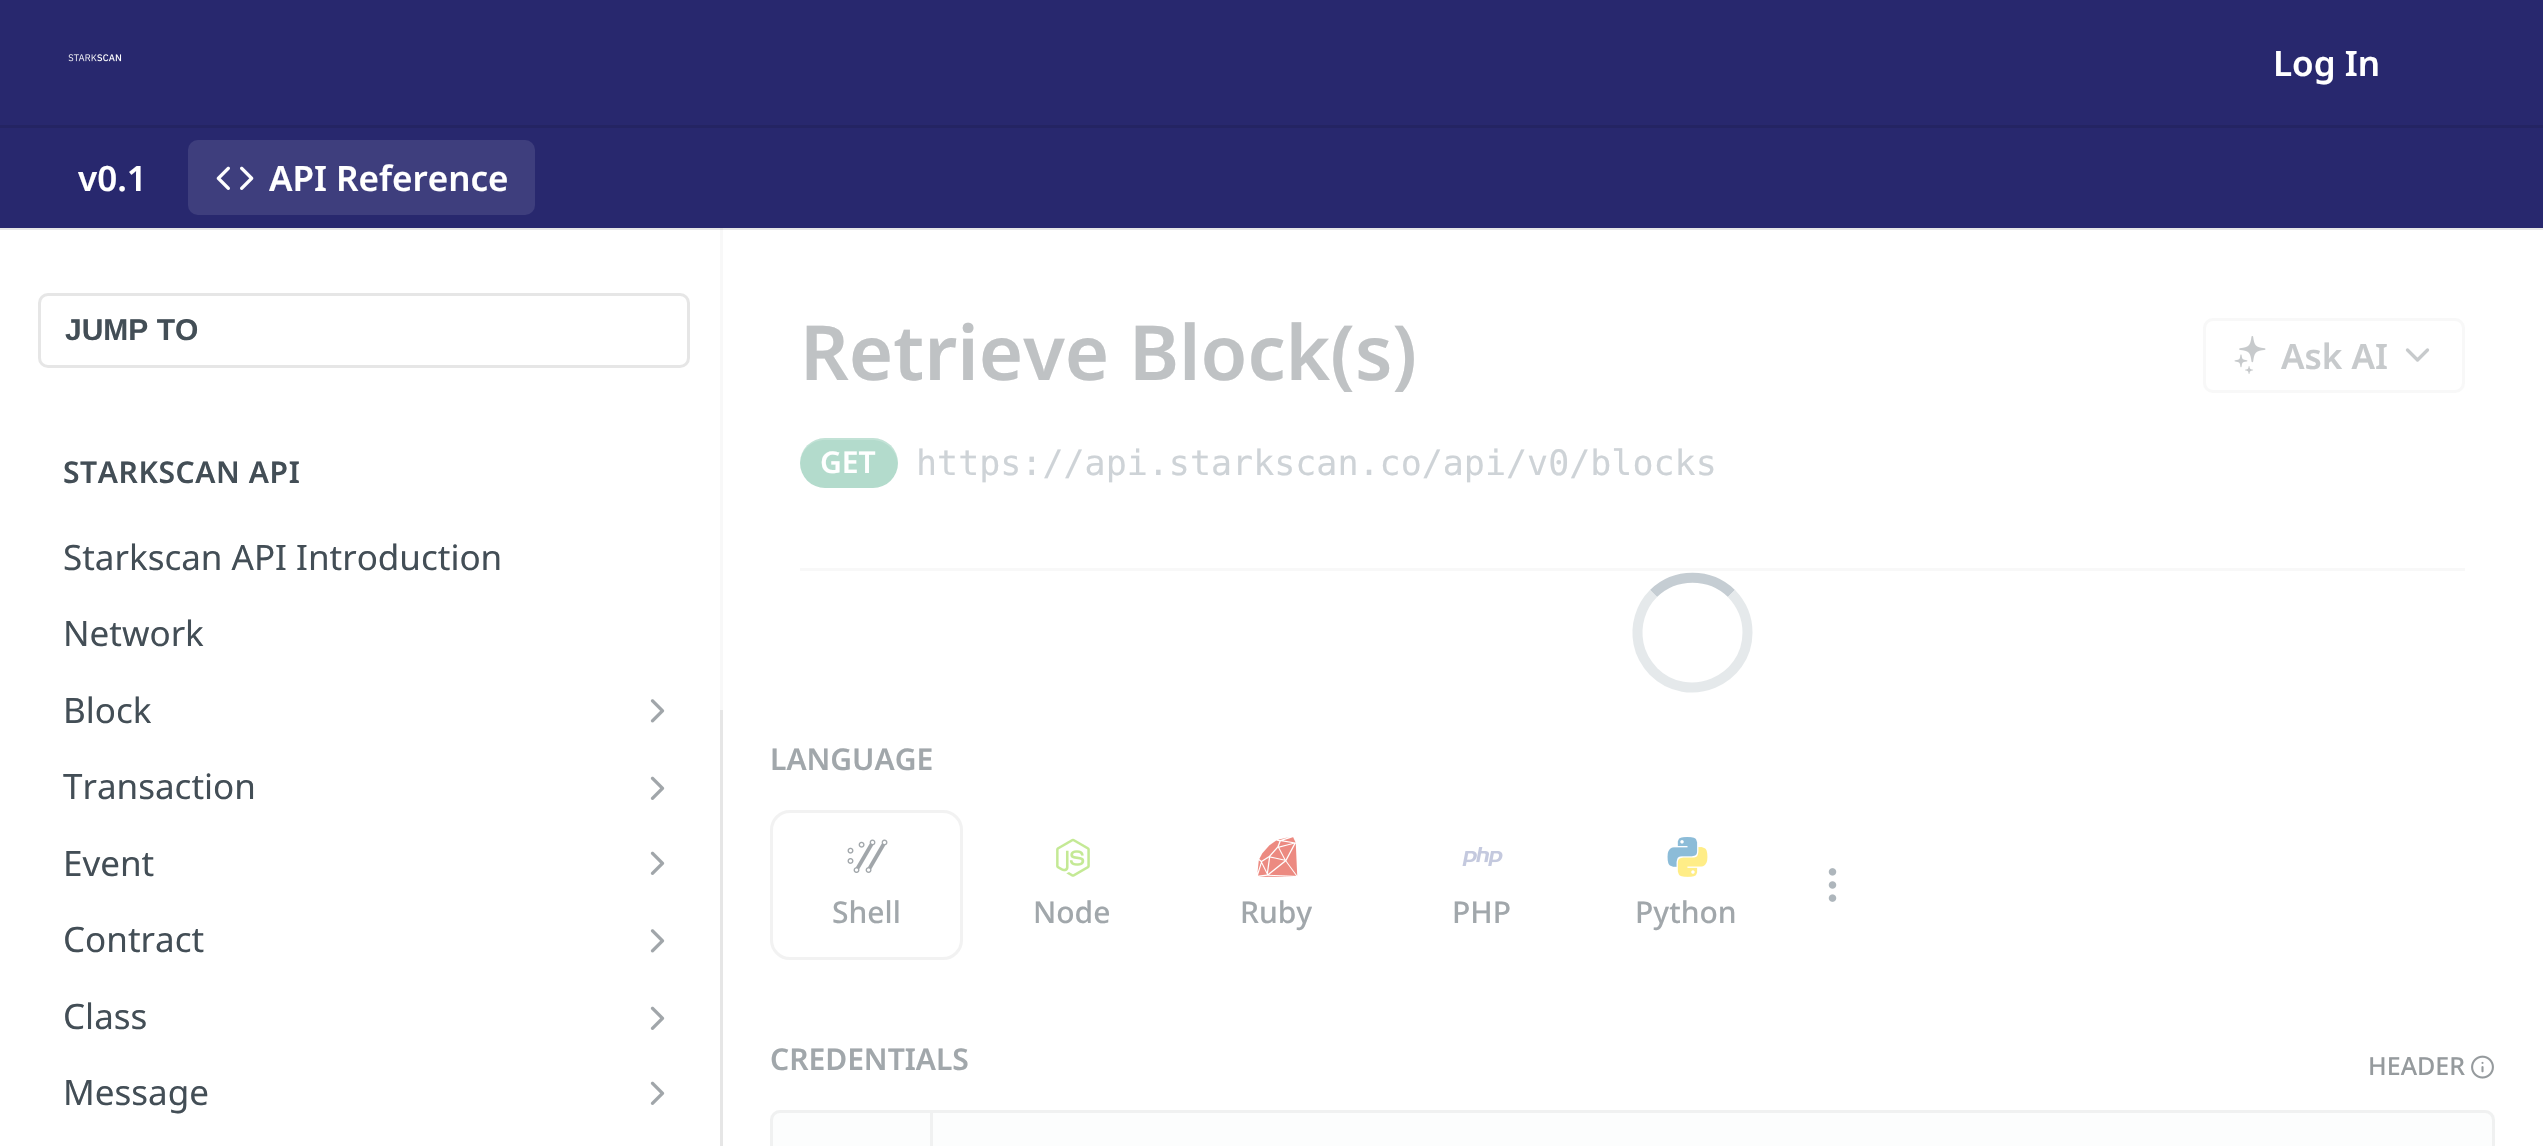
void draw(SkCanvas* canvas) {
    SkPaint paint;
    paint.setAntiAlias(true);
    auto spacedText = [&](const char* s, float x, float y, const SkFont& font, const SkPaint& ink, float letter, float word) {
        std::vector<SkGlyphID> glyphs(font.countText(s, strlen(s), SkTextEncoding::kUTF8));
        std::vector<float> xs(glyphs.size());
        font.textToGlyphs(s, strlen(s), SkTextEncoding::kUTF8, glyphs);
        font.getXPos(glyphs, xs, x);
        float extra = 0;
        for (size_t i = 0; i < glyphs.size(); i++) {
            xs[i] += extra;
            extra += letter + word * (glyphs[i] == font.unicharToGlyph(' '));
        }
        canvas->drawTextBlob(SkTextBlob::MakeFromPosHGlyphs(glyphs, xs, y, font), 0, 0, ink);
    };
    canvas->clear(0xFFFFFFFF);
    paint.setColor(0xFFE6E6E6);
    canvas->drawRect(SkRect::MakeXYWH(0, 228, 2543, 2), paint);
    paint.setColor(0xFF28286E);
    canvas->drawRect(SkRect::MakeXYWH(0, 0, 2543, 228), paint);
    paint.setColor(0xFF242463);
    canvas->drawRect(SkRect::MakeXYWH(0, 125, 2543, 3), paint);
    canvas->drawImageRect(SkImages::DeferredFromEncodedData(SkData::MakeFromFileName("img1.png")), SkRect::MakeXYWH(68, 54, 54, 8), SkSamplingOptions());
    SkFont font1(fontMgr->matchFamilyStyle("Noto Sans", SkFontStyle(600, SkFontStyle::kNormal_Width, SkFontStyle::kUpright_Slant)), 35);
    font1.setSubpixel(true);
    paint.setColor(0xFFFFFFFF);
    canvas->drawString("Log In", 2273, 76, font1, paint);
    canvas->drawString("v0.1", 78, 191, font1, paint);
    paint.setColor(0xFF3E3E7D);
    canvas->drawRoundRect(SkRect::MakeXYWH(188, 140, 347, 75), 10, 10, paint);
    canvas->drawImageRect(SkImages::DeferredFromEncodedData(SkData::MakeFromFileName("img2.png")), SkRect::MakeXYWH(216, 166, 38, 24), SkSamplingOptions());
    paint.setColor(0xFFFFFFFF);
    canvas->drawString("API Reference", 269, 191, font1, paint);
    paint.setColor(0xFFE6E6E6);
    canvas->drawRect(SkRect::MakeXYWH(720, 710, 3, 436), paint);
    paint.setColor(0xFFF8F8F8);
    canvas->drawRect(SkRect::MakeXYWH(720, 228, 3, 482), paint);
    paint.setColor(0xFFDFDFDF);
    canvas->drawRect(SkRect::MakeXYWH(720, 228, 3, 2), paint);
    paint.setStyle(SkPaint::kStroke_Style);
    paint.setStrokeWidth(3);
    paint.setColor(0xFFE6E6E6);
    canvas->drawRoundRect(SkRect::MakeXYWH(39.5f, 294.5f, 649, 72), 8.5f, 8.5f, paint);
    SkFont font2(fontMgr->matchFamilyStyle("Liberation Sans", SkFontStyle::Bold()), 30);
    font2.setSubpixel(true);
    paint.setStyle(SkPaint::kFill_Style);
    paint.setColor(0xFF434E56);
    canvas->drawString("JUMP TO", 65, 340, font2, paint);
    SkFont font3(fontMgr->matchFamilyStyle("Noto Sans", SkFontStyle(600, SkFontStyle::kNormal_Width, SkFontStyle::kUpright_Slant)), 30);
    font3.setSubpixel(true);
    spacedText("STARKSCAN API", 63, 483, font3, paint, 0.6f, 0);
    SkFont font4(fontMgr->matchFamilyStyle("Noto Sans", SkFontStyle::Normal()), 35);
    font4.setSubpixel(true);
    canvas->drawString("Starkscan API Introduction", 63, 570, font4, paint);
    canvas->drawString("Network", 63, 646, font4, paint);
    canvas->drawString("Block", 63, 723, font4, paint);
    canvas->drawImageRect(SkImages::DeferredFromEncodedData(SkData::MakeFromFileName("img3.png")), SkRect::MakeXYWH(650, 699, 15, 24), SkSamplingOptions());
    canvas->drawString("Transaction", 63, 799, font4, paint);
    canvas->drawImageRect(SkImages::DeferredFromEncodedData(SkData::MakeFromFileName("img4.png")), SkRect::MakeXYWH(650, 776, 15, 24), SkSamplingOptions());
    canvas->drawString("Event", 63, 876, font4, paint);
    canvas->drawImageRect(SkImages::DeferredFromEncodedData(SkData::MakeFromFileName("img4.png")), SkRect::MakeXYWH(650, 851, 15, 24), SkSamplingOptions());
    canvas->drawString("Contract", 63, 952, font4, paint);
    canvas->drawImageRect(SkImages::DeferredFromEncodedData(SkData::MakeFromFileName("img3.png")), SkRect::MakeXYWH(650, 929, 15, 24), SkSamplingOptions());
    canvas->drawString("Class", 63, 1029, font4, paint);
    canvas->drawImageRect(SkImages::DeferredFromEncodedData(SkData::MakeFromFileName("img4.png")), SkRect::MakeXYWH(650, 1006, 15, 24), SkSamplingOptions());
    canvas->drawString("Message", 63, 1105, font4, paint);
    canvas->drawImageRect(SkImages::DeferredFromEncodedData(SkData::MakeFromFileName("img4.png")), SkRect::MakeXYWH(650, 1081, 15, 24), SkSamplingOptions());
    paint.setColor(0xFFF8F8F8);
    canvas->drawRect(SkRect::MakeXYWH(800, 568, 1665, 3), paint);
    SkFont font5(fontMgr->matchFamilyStyle("Noto Sans", SkFontStyle(600, SkFontStyle::kNormal_Width, SkFontStyle::kUpright_Slant)), 76);
    font5.setSubpixel(true);
    paint.setColor(0xFFBFC2C4);
    canvas->drawString("Retrieve Block(s)", 800, 380, font5, paint);
    paint.setStyle(SkPaint::kStroke_Style);
    paint.setColor(0xFFF8F8F8);
    canvas->drawRoundRect(SkRect::MakeXYWH(2204.5f, 319.5f, 259, 72), 8.5f, 8.5f, paint);
    canvas->drawImageRect(SkImages::DeferredFromEncodedData(SkData::MakeFromFileName("img5.png")), SkRect::MakeXYWH(2234, 336, 32, 38), SkSamplingOptions());
    paint.setStyle(SkPaint::kFill_Style);
    paint.setColor(0xFFC7CACC);
    canvas->drawString("Ask AI", 2281, 369, font1, paint);
    paint.setStyle(SkPaint::kStroke_Style);
    paint.setStrokeWidth(3.3f);
    paint.setStrokeCap(SkPaint::kRound_Cap);
    paint.setStrokeJoin(SkPaint::kRound_Join);
    canvas->drawPath(SkPathBuilder().moveTo(2407.5f, 350).lineTo(2417.5f, 360).lineTo(2427.5f, 350).detach(), paint);
    paint.setStyle(SkPaint::kFill_Style);
    paint.setColor(0xFFB3DBCC);
    canvas->drawRoundRect(SkRect::MakeXYWH(800, 438, 98, 50), 25, 25, paint);
    paint.setColor(0x33FFFFFF);
    canvas->drawPath(SkPathBuilder().moveTo(825, 440).lineTo(872, 440).cubicTo(886, 440, 897, 450, 898, 464).lineTo(898, 463).cubicTo(898, 449, 887, 438, 873, 438).lineTo(825, 438).cubicTo(811, 438, 800, 449, 800, 463).lineTo(800, 464).cubicTo(801, 450, 811, 440, 825, 440).close().detach(), paint);
    paint.setColor(0xFFFFFFFF);
    canvas->drawString("GET", 820, 473, font3, paint);
    SkFont font6(fontMgr->matchFamilyStyle("DejaVu Sans Mono", SkFontStyle::Normal()), 35);
    font6.setSubpixel(true);
    paint.setColor(0xFFCED3D7);
    canvas->drawString("https://api.starkscan.co/api/v0/blocks", 916, 475, font6, paint);
    paint.setStyle(SkPaint::kStroke_Style);
    paint.setStrokeWidth(10);
    paint.setStrokeCap(SkPaint::kButt_Cap);
    paint.setStrokeJoin(SkPaint::kMiter_Join);
    paint.setColor(0xFFC5CDD3);
    canvas->drawPath(SkPathBuilder().moveTo(1653.5f, 593.5f).cubicTo(1675, 572.5f, 1710, 572.5f, 1731.5f, 593.5f).detach(), paint);
    paint.setColor(0xFFE5E9EB);
    canvas->drawPath(SkPathBuilder().moveTo(1731.5f, 593.5f).cubicTo(1741.5f, 604, 1747.5f, 618, 1747.5f, 632.5f).cubicTo(1747.5f, 681, 1688, 706, 1653.5f, 671.5f).cubicTo(1646, 663.5f, 1640.5f, 654, 1638.5f, 643.5f).cubicTo(1635, 625.5f, 1640.5f, 606.5f, 1653.5f, 593.5f).detach(), paint);
    paint.setStyle(SkPaint::kFill_Style);
    paint.setColor(0xFFA1A7AB);
    canvas->drawString("LANGUAGE", 770, 770, font3, paint);
    canvas->drawImageRect(SkImages::DeferredFromEncodedData(SkData::MakeFromFileName("img6.png")), SkRect::MakeXYWH(1828, 868, 9, 34), SkSamplingOptions());
    paint.setStyle(SkPaint::kStroke_Style);
    paint.setStrokeWidth(3);
    paint.setColor(0xFFF2F2F2);
    canvas->drawRoundRect(SkRect::MakeXYWH(771.5f, 811.5f, 190, 147), 18.5f, 18.5f, paint);
    canvas->drawImageRect(SkImages::DeferredFromEncodedData(SkData::MakeFromFileName("img7.png")), SkRect::MakeXYWH(847, 839, 41, 34), SkSamplingOptions());
    SkFont font7(fontMgr->matchFamilyStyle("Noto Sans", SkFontStyle(500, SkFontStyle::kNormal_Width, SkFontStyle::kUpright_Slant)), 30);
    font7.setSubpixel(true);
    paint.setStyle(SkPaint::kFill_Style);
    paint.setColor(0xFFA1A7AB);
    canvas->drawString("Shell", 832, 923, font7, paint);
    canvas->drawImageRect(SkImages::DeferredFromEncodedData(SkData::MakeFromFileName("img8.png")), SkRect::MakeXYWH(1056, 838, 34, 39), SkSamplingOptions());
    canvas->drawString("Node", 1033, 923, font7, paint);
    canvas->drawImageRect(SkImages::DeferredFromEncodedData(SkData::MakeFromFileName("img9.png")), SkRect::MakeXYWH(1257, 837, 41, 40), SkSamplingOptions());
    canvas->drawString("Ruby", 1240, 923, font7, paint);
    canvas->drawImageRect(SkImages::DeferredFromEncodedData(SkData::MakeFromFileName("img10.png")), SkRect::MakeXYWH(1462, 847, 41, 19), SkSamplingOptions());
    canvas->drawString("PHP", 1452, 923, font7, paint);
    canvas->drawImageRect(SkImages::DeferredFromEncodedData(SkData::MakeFromFileName("img11.png")), SkRect::MakeXYWH(1667, 837, 31, 30), SkSamplingOptions());
    canvas->drawImageRect(SkImages::DeferredFromEncodedData(SkData::MakeFromFileName("img12.png")), SkRect::MakeXYWH(1677, 847, 31, 30), SkSamplingOptions());
    canvas->drawString("Python", 1635, 923, font7, paint);
    canvas->drawString("CREDENTIALS", 770, 1070, font3, paint);
    SkFont font8(fontMgr->matchFamilyStyle("Noto Sans", SkFontStyle(500, SkFontStyle::kNormal_Width, SkFontStyle::kUpright_Slant)), 25);
    font8.setSubpixel(true);
    paint.setColor(0xFF959A9D);
    canvas->drawString("HEADER", 2368, 1075, font8, paint);
    canvas->drawImageRect(SkImages::DeferredFromEncodedData(SkData::MakeFromFileName("img13.png")), SkRect::MakeXYWH(2471, 1055, 23, 24), SkSamplingOptions());
    paint.setColor(0xFFFCFDFD);
    canvas->drawPath(SkPathBuilder().moveTo(780, 1110).lineTo(2485, 1110).cubicTo(2490.5f, 1110, 2495, 1114.5f, 2495, 1120).lineTo(2495, 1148).lineTo(770, 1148).lineTo(770, 1120).cubicTo(770, 1114.5f, 774.5f, 1110, 780, 1110).close().detach(), paint);
    paint.setStyle(SkPaint::kStroke_Style);
    paint.setColor(0xFFF0F1F1);
    canvas->drawRoundRect(SkRect::MakeXYWH(771.5f, 1111.5f, 1722, 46), 8.5f, 8.5f, paint);
    paint.setStyle(SkPaint::kFill_Style);
    canvas->drawRect(SkRect::MakeXYWH(930, 1113, 3, 33), paint);
}
